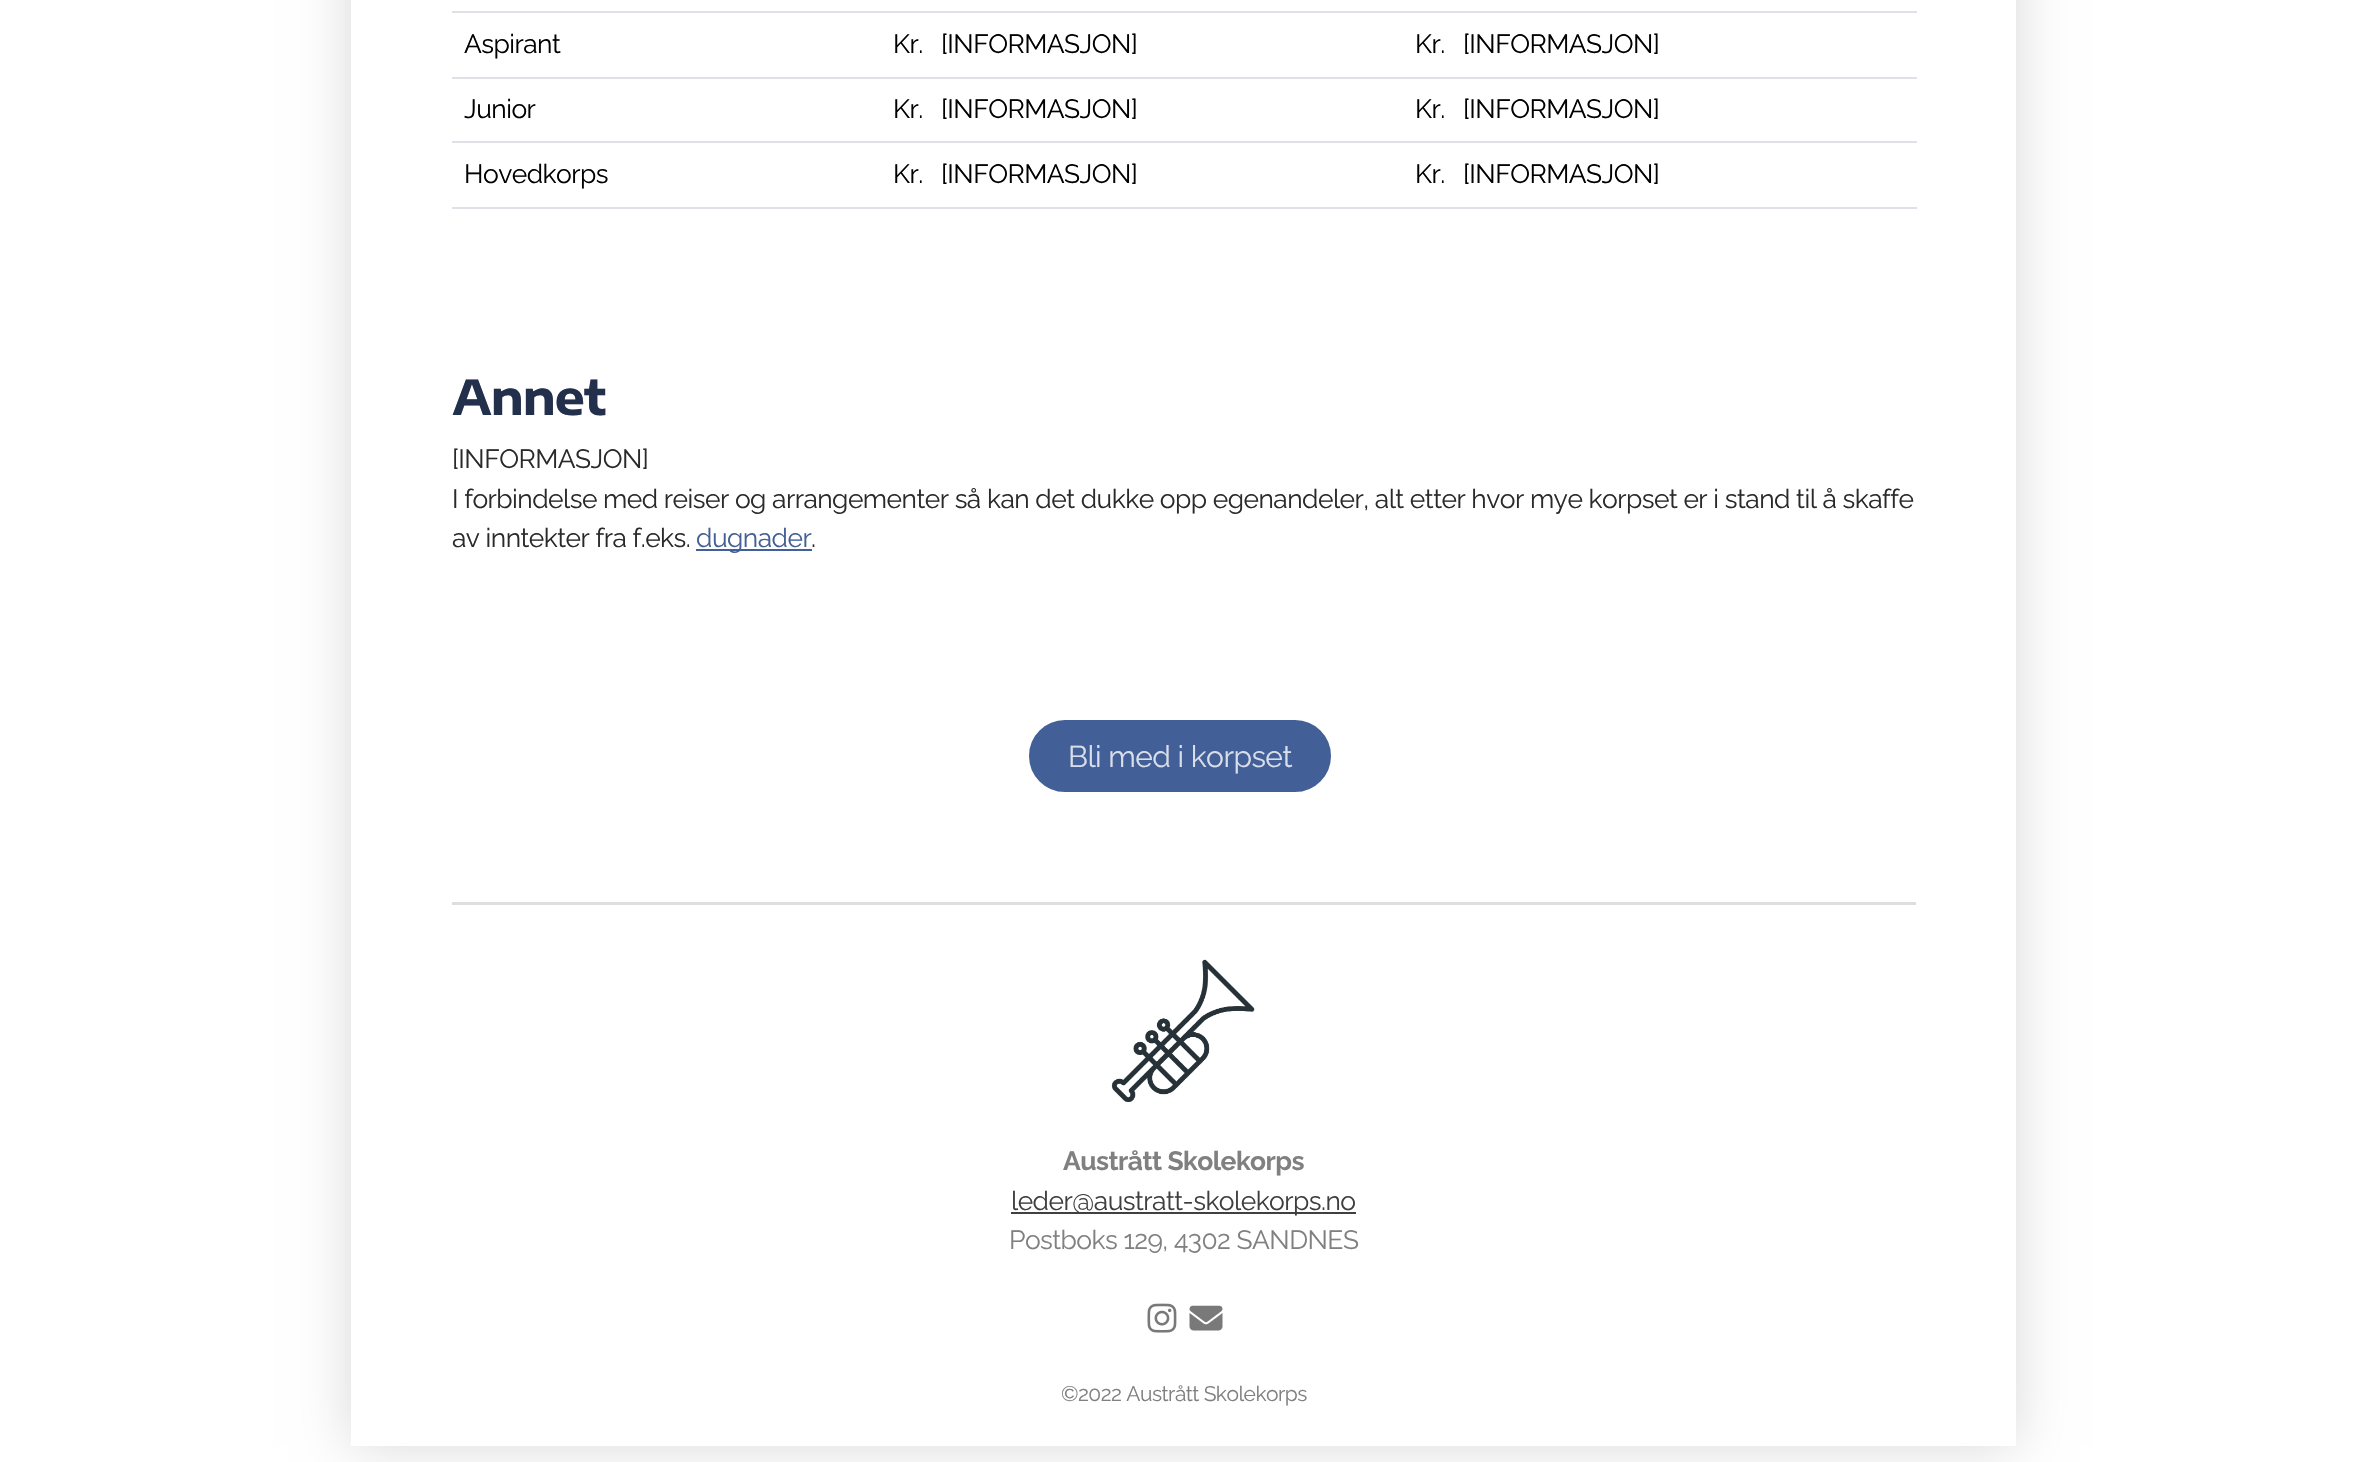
void draw(SkCanvas* canvas) {
    SkPaint paint;
    paint.setAntiAlias(true);
    auto spacedText = [&](const char* s, float x, float y, const SkFont& font, const SkPaint& ink, float letter, float word) {
        std::vector<SkGlyphID> glyphs(font.countText(s, strlen(s), SkTextEncoding::kUTF8));
        std::vector<float> xs(glyphs.size());
        font.textToGlyphs(s, strlen(s), SkTextEncoding::kUTF8, glyphs);
        font.getXPos(glyphs, xs, x);
        float extra = 0;
        for (size_t i = 0; i < glyphs.size(); i++) {
            xs[i] += extra;
            extra += letter + word * (glyphs[i] == font.unicharToGlyph(' '));
        }
        canvas->drawTextBlob(SkTextBlob::MakeFromPosHGlyphs(glyphs, xs, y, font), 0, 0, ink);
    };
    canvas->clear(0xFFFFFFFF);
    canvas->save();
    canvas->clipPath(SkPathBuilder(SkPathFillType::kEvenOdd).moveTo(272, 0).lineTo(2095, 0).lineTo(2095, 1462).lineTo(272, 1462).close().moveTo(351, -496).lineTo(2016, -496).lineTo(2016, 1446).lineTo(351, 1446).close().detach(), true);
    paint.setColor(0x26000000);
    paint.setMaskFilter(SkMaskFilter::MakeBlur(kNormal_SkBlurStyle, 26));
    canvas->drawRect(SkRect::MakeXYWH(351, -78, 1665, 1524), paint);
    paint.setMaskFilter(nullptr);
    canvas->restore();
    paint.setColor(0xFFDEE2E6);
    canvas->drawRect(SkRect::MakeXYWH(452, 11, 1465, 2), paint);
    SkFont font1(fontMgr->matchFamilyStyle("Raleway", SkFontStyle::Normal()), 26.4f);
    font1.setSubpixel(true);
    paint.setColor(0xFF000000);
    spacedText("Aspirant", 464, 53, font1, paint, -0.53f, 0);
    spacedText("Kr.", 893, 53, font1, paint, -0.53f, 0);
    spacedText("[INFORMASJON]", 941, 53, font1, paint, -0.53f, 0);
    paint.setColor(0xFFDEE2E6);
    canvas->drawRect(SkRect::MakeXYWH(452, 77, 1465, 2), paint);
    paint.setColor(0xFF000000);
    spacedText("Kr.", 1415, 53, font1, paint, -0.53f, 0);
    spacedText("[INFORMASJON]", 1463, 53, font1, paint, -0.53f, 0);
    spacedText("Junior", 464, 118, font1, paint, -0.53f, 0);
    spacedText("Kr.", 893, 118, font1, paint, -0.53f, 0);
    spacedText("[INFORMASJON]", 941, 118, font1, paint, -0.53f, 0);
    paint.setColor(0xFFDEE2E6);
    canvas->drawRect(SkRect::MakeXYWH(452, 141, 1465, 2), paint);
    paint.setColor(0xFF000000);
    spacedText("Kr.", 1415, 118, font1, paint, -0.53f, 0);
    spacedText("[INFORMASJON]", 1463, 118, font1, paint, -0.53f, 0);
    spacedText("Hovedkorps", 464, 183, font1, paint, -0.53f, 0);
    spacedText("Kr.", 893, 183, font1, paint, -0.53f, 0);
    spacedText("[INFORMASJON]", 941, 183, font1, paint, -0.53f, 0);
    paint.setColor(0xFFDEE2E6);
    canvas->drawRect(SkRect::MakeXYWH(452, 207, 1465, 2), paint);
    paint.setColor(0xFF000000);
    spacedText("Kr.", 1415, 183, font1, paint, -0.53f, 0);
    spacedText("[INFORMASJON]", 1463, 183, font1, paint, -0.53f, 0);
    SkFont font2(fontMgr->matchFamilyStyle("Encode Sans Expanded", SkFontStyle::Bold()), 48);
    font2.setSubpixel(true);
    paint.setColor(0xFF22304C);
    spacedText("Annet", 452, 415, font2, paint, -1.5f, 0);
    paint.setColor(0xFF2A2A2A);
    spacedText("[INFORMASJON]", 452, 468, font1, paint, -0.53f, 0);
    spacedText("I forbindelse med reiser og arrangementer så kan det dukke opp egenandeler, alt etter hvor mye korpset er i stand til å skaffe", 452, 508, font1, paint, -0.53f, 0);
    spacedText("av inntekter fra f.eks.", 452, 547, font1, paint, -0.53f, 0);
    paint.setColor(0xFF435F97);
    canvas->drawRect(SkRect::MakeXYWH(696, 549, 116, 2), paint);
    spacedText("dugnader", 696, 547, font1, paint, -0.53f, 0);
    paint.setColor(0xFF2A2A2A);
    spacedText(".", 811, 547, font1, paint, -0.53f, 0);
    paint.setColor(0xFF435F97);
    canvas->drawRoundRect(SkRect::MakeXYWH(1030, 721, 300, 70), 35, 35, paint);
    paint.setStyle(SkPaint::kStroke_Style);
    paint.setStrokeWidth(2);
    canvas->drawRoundRect(SkRect::MakeXYWH(1030, 721, 300, 70), 35, 35, paint);
    SkFont font3(fontMgr->matchFamilyStyle("Raleway", SkFontStyle::Normal()), 30);
    font3.setSubpixel(true);
    paint.setStyle(SkPaint::kFill_Style);
    paint.setColor(0xFFD9DFEA);
    spacedText("Bli med i korpset", 1068, 767, font3, paint, -0.53f, 0);
    paint.setColor(0xFFDEDEDE);
    canvas->drawRect(SkRect::MakeXYWH(452, 902, 1464, 3), paint);
    canvas->drawImageRect(SkImages::DeferredFromEncodedData(SkData::MakeFromFileName("img1.png")), SkRect::MakeXYWH(1111, 959, 144, 143), SkSamplingOptions());
    SkFont font4(fontMgr->matchFamilyStyle("Raleway", SkFontStyle::Bold()), 26.4f);
    font4.setSubpixel(true);
    paint.setColor(0xFF808080);
    spacedText("Austrått Skolekorps", 1063, 1170, font4, paint, -0.53f, 0);
    paint.setColor(0xFF404040);
    canvas->drawRect(SkRect::MakeXYWH(1011, 1212, 345, 2), paint);
    paint.setColor(0xFF3F3F3F);
    spacedText("leder@austratt-skolekorps.no", 1011, 1210, font1, paint, -0.53f, 0);
    paint.setColor(0xFF808080);
    spacedText("Postboks 129, 4302 SANDNES", 1009, 1249, font1, paint, -0.53f, 0);
    canvas->drawImageRect(SkImages::DeferredFromEncodedData(SkData::MakeFromFileName("img2.png")), SkRect::MakeXYWH(1147, 1303, 30, 30), SkSamplingOptions());
    canvas->drawImageRect(SkImages::DeferredFromEncodedData(SkData::MakeFromFileName("img3.png")), SkRect::MakeXYWH(1189, 1305, 34, 26), SkSamplingOptions());
    SkFont font5(fontMgr->matchFamilyStyle("Raleway", SkFontStyle::Normal()), 21);
    font5.setSubpixel(true);
    spacedText("©2022 Austrått Skolekorps", 1061, 1401, font5, paint, -0.53f, 0);
}
